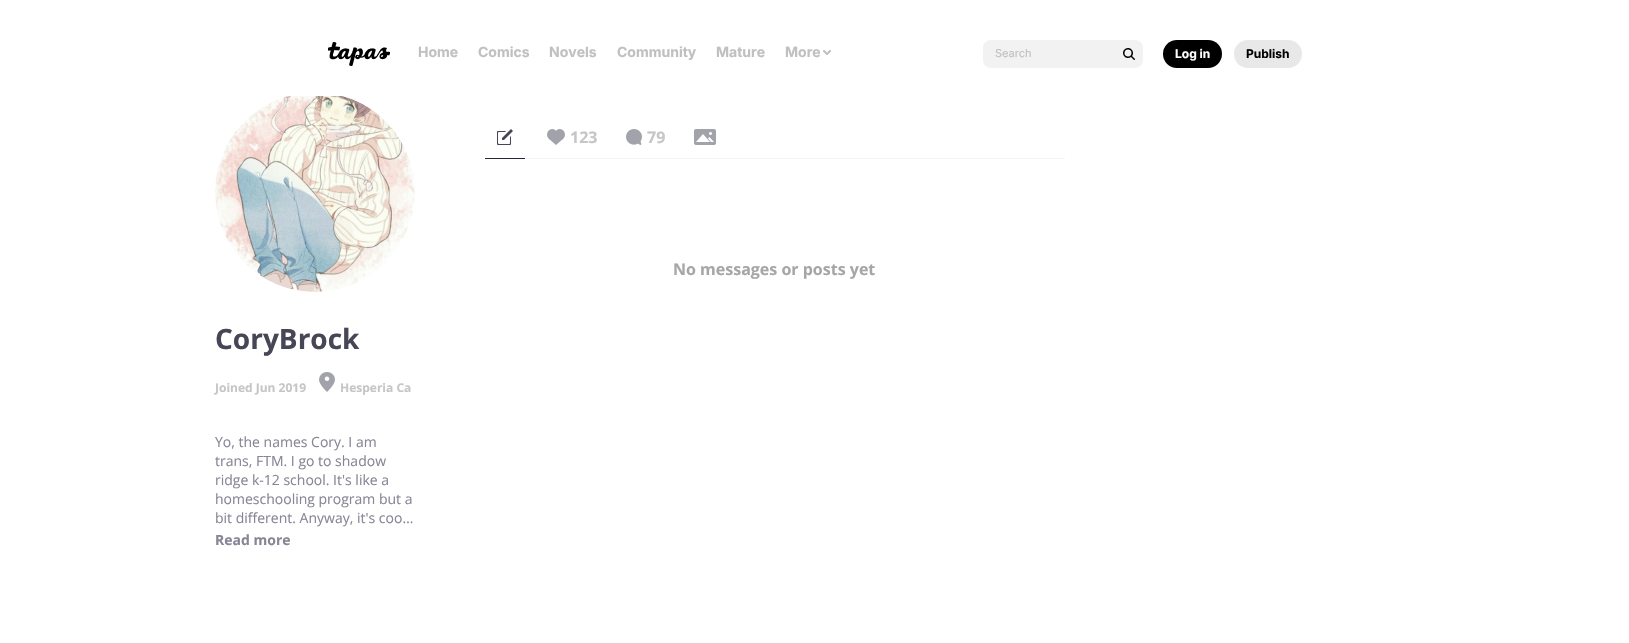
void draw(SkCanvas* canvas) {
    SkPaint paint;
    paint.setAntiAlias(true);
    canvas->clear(0xFFFFFFFF);
    canvas->drawImageRect(SkImages::DeferredFromEncodedData(SkData::MakeFromFileName("img1.png")), SkRect::MakeXYWH(328, 42, 62, 24), SkSamplingOptions());
    SkFont font1(fontMgr->matchFamilyStyle("Inter", SkFontStyle::Bold()), 14);
    font1.setSubpixel(true);
    paint.setColor(0xFFC0C0C0);
    canvas->drawString("Home", 418, 57, font1, paint);
    canvas->drawString("Comics", 478, 57, font1, paint);
    canvas->drawString("Novels", 549, 57, font1, paint);
    canvas->drawString("Community", 617, 57, font1, paint);
    canvas->drawString("Mature", 716, 57, font1, paint);
    canvas->drawString("More", 785, 57, font1, paint);
    canvas->drawImageRect(SkImages::DeferredFromEncodedData(SkData::MakeFromFileName("img2.png")), SkRect::MakeXYWH(823, 50, 8, 5), SkSamplingOptions());
    paint.setColor(0xFFF2F2F2);
    canvas->drawRoundRect(SkRect::MakeXYWH(983, 40, 160, 28), 8, 8, paint);
    SkFont font2(fontMgr->matchFamilyStyle("Inter", SkFontStyle::Normal()), 11);
    font2.setSubpixel(true);
    paint.setColor(0xFFC0C0C0);
    canvas->drawString("Search", 995, 57, font2, paint);
    canvas->drawImageRect(SkImages::DeferredFromEncodedData(SkData::MakeFromFileName("img3.png")), SkRect::MakeXYWH(1123, 48, 12, 12), SkSamplingOptions());
    paint.setColor(0xFF000000);
    canvas->drawRoundRect(SkRect::MakeXYWH(1163, 40, 59, 28), 14, 14, paint);
    SkFont font3(fontMgr->matchFamilyStyle("Inter", SkFontStyle::Bold()), 12);
    font3.setSubpixel(true);
    paint.setColor(0xFFFFFFFF);
    canvas->drawString("Log in", 1175, 58, font3, paint);
    paint.setColor(0xFFE8E8E8);
    canvas->drawRoundRect(SkRect::MakeXYWH(1234, 40, 68, 28), 14, 14, paint);
    paint.setColor(0xFF000000);
    canvas->drawString("Publish", 1246, 58, font3, paint);
    paint.setColor(0xFFF6F6F6);
    canvas->drawRect(SkRect::MakeXYWH(525, 158, 540, 1), paint);
    paint.setColor(0xFF262636);
    canvas->drawRect(SkRect::MakeXYWH(485, 158, 40, 1), paint);
    canvas->drawImageRect(SkImages::DeferredFromEncodedData(SkData::MakeFromFileName("img4.png")), SkRect::MakeXYWH(497, 129, 16, 16), SkSamplingOptions());
    canvas->drawImageRect(SkImages::DeferredFromEncodedData(SkData::MakeFromFileName("img5.png")), SkRect::MakeXYWH(547, 129, 18, 16), SkSamplingOptions());
    SkFont font4(fontMgr->matchFamilyStyle("Open Sans", SkFontStyle::Bold()), 16);
    font4.setSubpixel(true);
    paint.setColor(0xFFC6C6C6);
    canvas->drawString("123", 570, 143, font4, paint);
    canvas->drawImageRect(SkImages::DeferredFromEncodedData(SkData::MakeFromFileName("img6.png")), SkRect::MakeXYWH(626, 129, 16, 16), SkSamplingOptions());
    canvas->drawString("79", 647, 143, font4, paint);
    canvas->drawImageRect(SkImages::DeferredFromEncodedData(SkData::MakeFromFileName("img7.png")), SkRect::MakeXYWH(694, 129, 22, 16), SkSamplingOptions());
    paint.setColor(0xFFA6A6A6);
    canvas->drawString("No messages or posts yet", 673, 275, font4, paint);
    canvas->drawImageRect(SkImages::DeferredFromEncodedData(SkData::MakeFromFileName("img8.png")), SkRect::MakeXYWH(215, 96, 200, 196), SkSamplingOptions());
    SkFont font5(fontMgr->matchFamilyStyle("Open Sans", SkFontStyle::Bold()), 28);
    font5.setSubpixel(true);
    paint.setColor(0xFF464656);
    canvas->drawString("CoryBrock", 215, 349, font5, paint);
    SkFont font6(fontMgr->matchFamilyStyle("Open Sans", SkFontStyle::Bold()), 12);
    font6.setSubpixel(true);
    paint.setColor(0xFFC6C6C6);
    canvas->drawString("Joined Jun 2019", 215, 392, font6, paint);
    canvas->drawImageRect(SkImages::DeferredFromEncodedData(SkData::MakeFromFileName("img9.png")), SkRect::MakeXYWH(319, 372, 16, 20), SkSamplingOptions());
    canvas->drawString("Hesperia Ca", 340, 392, font6, paint);
    SkFont font7(fontMgr->matchFamilyStyle("Open Sans", SkFontStyle::Normal()), 14);
    font7.setSubpixel(true);
    paint.setColor(0xFF868696);
    canvas->drawString("Yo, the names Cory. I am", 215, 447, font7, paint);
    canvas->drawString("trans, FTM. I go to shadow", 215, 466, font7, paint);
    canvas->drawString("ridge k-12 school. It's like a", 215, 485, font7, paint);
    canvas->drawString("homeschooling program but a", 215, 504, font7, paint);
    canvas->drawString("bit different. Anyway, it's coo…", 215, 523, font7, paint);
    SkFont font8(fontMgr->matchFamilyStyle("Open Sans", SkFontStyle::Bold()), 14);
    font8.setSubpixel(true);
    canvas->drawString("Read more", 215, 545, font8, paint);
}
